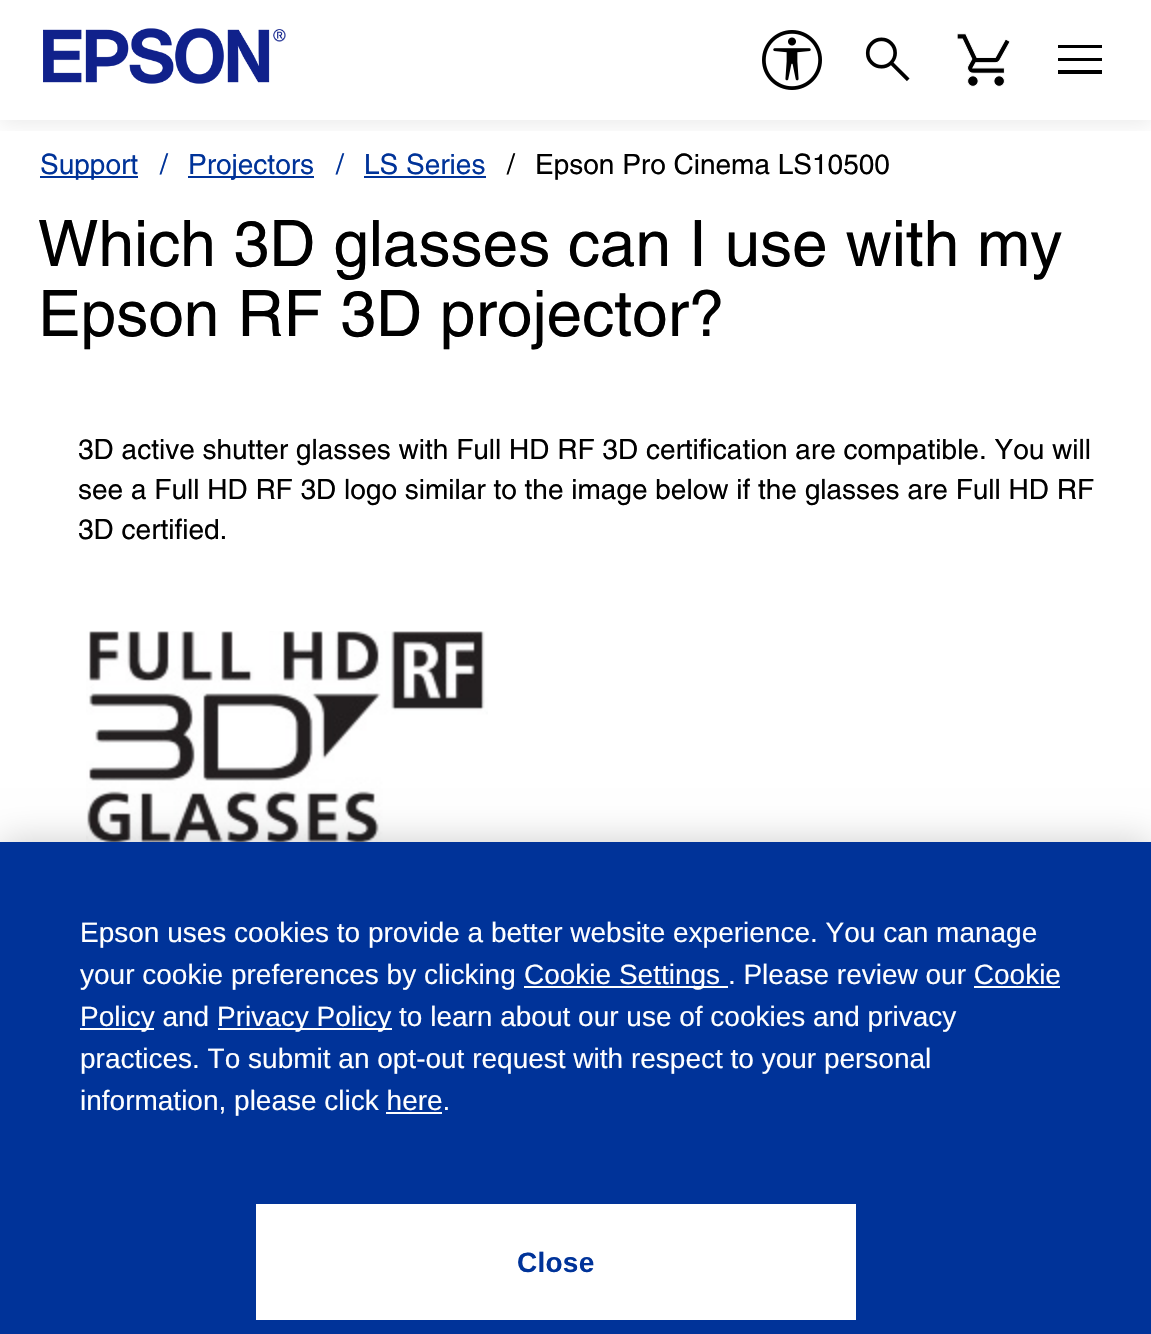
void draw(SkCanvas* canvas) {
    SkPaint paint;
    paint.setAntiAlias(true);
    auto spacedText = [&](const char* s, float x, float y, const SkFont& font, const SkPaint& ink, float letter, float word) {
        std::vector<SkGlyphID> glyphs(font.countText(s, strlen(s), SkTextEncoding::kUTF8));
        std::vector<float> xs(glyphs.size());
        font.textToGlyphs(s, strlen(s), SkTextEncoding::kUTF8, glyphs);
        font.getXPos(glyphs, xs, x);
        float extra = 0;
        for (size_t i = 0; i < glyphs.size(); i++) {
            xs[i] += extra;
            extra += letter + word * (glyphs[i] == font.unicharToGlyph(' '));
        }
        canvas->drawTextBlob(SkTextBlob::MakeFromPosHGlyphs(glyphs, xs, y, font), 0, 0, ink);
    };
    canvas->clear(0xFFFFFFFF);
    canvas->save();
    canvas->clipRect(SkRect::MakeXYWH(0, 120, 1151, 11));
    paint.setColor(0x14000000);
    paint.setMaskFilter(SkMaskFilter::MakeBlur(kNormal_SkBlurStyle, 10));
    canvas->drawRect(SkRect::MakeXYWH(0, 4, 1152, 120), paint);
    paint.setMaskFilter(nullptr);
    canvas->restore();
    canvas->drawImageRect(SkImages::DeferredFromEncodedData(SkData::MakeFromFileName("img1.png")), SkRect::MakeXYWH(43, 28, 243, 56), SkSamplingOptions());
    canvas->drawImageRect(SkImages::DeferredFromEncodedData(SkData::MakeFromFileName("img2.png")), SkRect::MakeXYWH(762, 30, 60, 60), SkSamplingOptions());
    canvas->drawImageRect(SkImages::DeferredFromEncodedData(SkData::MakeFromFileName("img3.png")), SkRect::MakeXYWH(865, 37, 45, 45), SkSamplingOptions());
    canvas->drawImageRect(SkImages::DeferredFromEncodedData(SkData::MakeFromFileName("img4.png")), SkRect::MakeXYWH(957, 33, 53, 54), SkSamplingOptions());
    paint.setColor(0xFF000000);
    canvas->drawPath(SkPathBuilder().moveTo(1058, 74).lineTo(1058, 70).lineTo(1102, 70).lineTo(1102, 74).close().moveTo(1058, 61).lineTo(1058, 58).lineTo(1102, 58).lineTo(1102, 61).close().moveTo(1058, 48).lineTo(1058, 45).lineTo(1102, 45).lineTo(1102, 48).close().detach(), paint);
    paint.setColor(0xFF003399);
    canvas->drawRect(SkRect::MakeXYWH(40, 176, 98, 2), paint);
    SkFont font1(fontMgr->matchFamilyStyle("Helvetica", SkFontStyle::Normal()), 28);
    font1.setSubpixel(true);
    canvas->drawString("Support", 40, 174, font1, paint);
    canvas->drawString("/", 160, 174, font1, paint);
    canvas->drawRect(SkRect::MakeXYWH(188, 176, 126, 2), paint);
    canvas->drawString("Projectors", 188, 174, font1, paint);
    canvas->drawString("/", 336, 174, font1, paint);
    canvas->drawString("LS Series", 364, 174, font1, paint);
    canvas->drawRect(SkRect::MakeXYWH(364, 176, 122, 2), paint);
    paint.setColor(0xFF000000);
    canvas->drawString("/", 507, 174, font1, paint);
    canvas->drawString("Epson Pro Cinema LS10500", 535, 174, font1, paint);
    SkFont font2(fontMgr->matchFamilyStyle("Helvetica", SkFontStyle::Normal()), 64);
    font2.setSubpixel(true);
    canvas->drawString("Which 3D glasses can I use with my", 38, 266, font2, paint);
    canvas->drawString("Epson RF 3D projector?", 38, 336, font2, paint);
    canvas->drawString("3D active shutter glasses with Full HD RF 3D certification are compatible. You will", 78, 459, font1, paint);
    canvas->drawString("see a Full HD RF 3D logo similar to the image below if the glasses are Full HD RF", 78, 499, font1, paint);
    canvas->drawString("3D certified.", 78, 539, font1, paint);
    canvas->drawImageRect(SkImages::DeferredFromEncodedData(SkData::MakeFromFileName("img5.png")), SkRect::MakeXYWH(86, 631, 402, 211), SkSamplingOptions());
    paint.setColor(0x33000000);
    paint.setMaskFilter(SkMaskFilter::MakeBlur(kNormal_SkBlurStyle, 18));
    canvas->drawRect(SkRect::MakeXYWH(0, 842, 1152, 492), paint);
    paint.setMaskFilter(nullptr);
    paint.setColor(0xFF003399);
    canvas->drawRect(SkRect::MakeXYWH(0, 842, 1151, 492), paint);
    SkFont font3(fontMgr->matchFamilyStyle("Liberation Sans", SkFontStyle::Normal()), 28);
    font3.setSubpixel(true);
    paint.setColor(0xFFFFFFFF);
    canvas->drawString("Epson uses cookies to provide a better website experience. You can manage", 80, 942, font3, paint);
    canvas->drawString("your cookie preferences by clicking", 80, 984, font3, paint);
    canvas->drawRect(SkRect::MakeXYWH(524, 986, 204, 2), paint);
    canvas->drawString("Cookie Settings . Please review our Cookie", 524, 984, font3, paint);
    canvas->drawRect(SkRect::MakeXYWH(80, 1028, 74, 2), paint);
    canvas->drawString("Policy and", 80, 1026, font3, paint);
    canvas->drawRect(SkRect::MakeXYWH(974, 986, 86, 2), paint);
    canvas->drawRect(SkRect::MakeXYWH(218, 1028, 174, 2), paint);
    canvas->drawString("Privacy Policy to learn about our use of cookies and privacy", 217, 1026, font3, paint);
    canvas->drawString("practices. To submit an opt-out request with respect to your personal", 80, 1068, font3, paint);
    canvas->drawString("information, please click here.", 80, 1110, font3, paint);
    canvas->drawRect(SkRect::MakeXYWH(386, 1112, 56, 2), paint);
    canvas->drawRect(SkRect::MakeXYWH(256, 1204, 600, 116), paint);
    SkFont font4(fontMgr->matchFamilyStyle("Liberation Sans", SkFontStyle::Bold()), 28);
    font4.setSubpixel(true);
    paint.setColor(0xFF003399);
    spacedText("Close", 517, 1272, font4, paint, 0.25f, 0);
}
